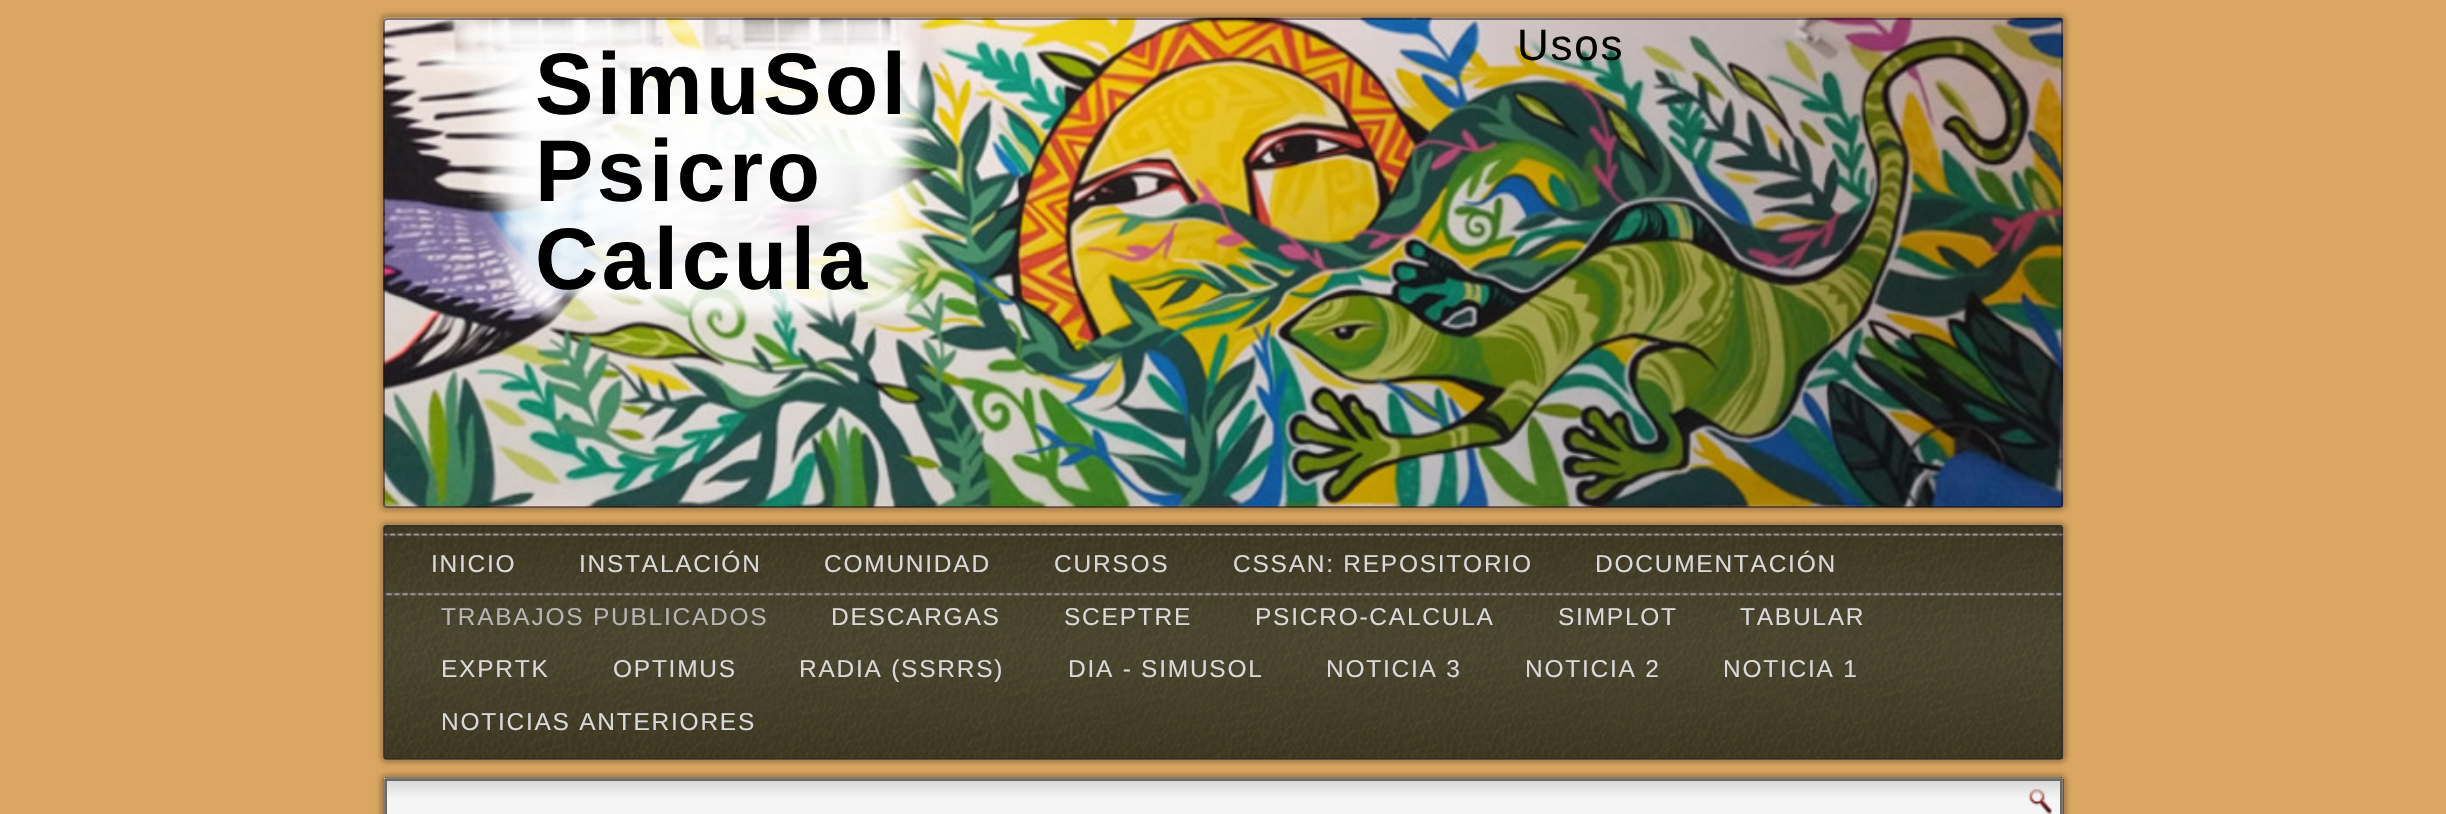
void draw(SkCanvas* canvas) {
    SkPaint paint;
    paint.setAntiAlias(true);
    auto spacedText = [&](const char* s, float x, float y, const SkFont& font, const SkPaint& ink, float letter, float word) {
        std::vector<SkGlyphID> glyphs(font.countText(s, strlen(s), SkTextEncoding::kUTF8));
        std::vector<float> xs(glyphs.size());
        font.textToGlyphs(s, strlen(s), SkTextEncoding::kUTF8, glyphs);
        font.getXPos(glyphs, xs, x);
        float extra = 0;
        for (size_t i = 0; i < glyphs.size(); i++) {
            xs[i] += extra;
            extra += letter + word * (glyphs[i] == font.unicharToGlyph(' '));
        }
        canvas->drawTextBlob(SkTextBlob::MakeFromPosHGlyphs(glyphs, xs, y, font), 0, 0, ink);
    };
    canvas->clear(0xFFFFFFFF);
    {
        const SkColor colors[] = {0xFFDAA662, 0xFFDAA662, 0xFFCF8A30, 0xFFA97128};
        const float stops[] = {0, 0.39f, 0.54f, 0.65f};
        const SkPoint ends[] = {{1223, 0}, {1223, 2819}};
        paint.setShader(SkGradientShader::MakeLinear(ends, colors, stops, 4, SkTileMode::kClamp));
        paint.setAlpha(255);
    }
    canvas->drawRect(SkRect::MakeXYWH(0, 0, 2446, 814), paint);
    paint.setShader(nullptr);
    paint.setColor(0x3D000000);
    paint.setMaskFilter(SkMaskFilter::MakeBlur(kNormal_SkBlurStyle, 2.5f));
    canvas->drawRoundRect(SkRect::MakeXYWH(380, 14, 1687, 497), 7, 7, paint);
    paint.setMaskFilter(nullptr);
    canvas->drawImageRect(SkImages::DeferredFromEncodedData(SkData::MakeFromFileName("img1.png")), SkRect::MakeXYWH(383, 17, 1681, 491), SkSamplingOptions());
    paint.setStyle(SkPaint::kStroke_Style);
    paint.setStrokeWidth(2);
    paint.setColor(0x801D0707);
    canvas->drawRoundRect(SkRect::MakeXYWH(384, 19, 1678, 488), 3, 3, paint);
    SkFont font1(fontMgr->matchFamilyStyle("Liberation Sans", SkFontStyle::Normal()), 44);
    font1.setSubpixel(true);
    paint.setStyle(SkPaint::kFill_Style);
    paint.setColor(0xFF000000);
    spacedText("Usos", 1517, 60, font1, paint, 1.75f, 0);
    SkFont font2(fontMgr->matchFamilyStyle("Liberation Sans", SkFontStyle::Bold()), 87.5f);
    font2.setSubpixel(true);
    spacedText("SimuSol", 535, 114, font2, paint, 3.5f, 0);
    spacedText("Psicro", 535, 201, font2, paint, 3.5f, 0);
    spacedText("Calcula", 535, 289, font2, paint, 3.5f, 0);
    canvas->save();
    canvas->clipPath(SkPathBuilder(SkPathFillType::kEvenOdd).moveTo(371, 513).lineTo(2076, 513).lineTo(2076, 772).lineTo(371, 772).close().moveTo(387, 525).lineTo(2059, 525).cubicTo(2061, 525, 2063, 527, 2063, 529).lineTo(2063, 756).cubicTo(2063, 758, 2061, 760, 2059, 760).lineTo(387, 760).cubicTo(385, 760, 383, 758, 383, 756).lineTo(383, 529).cubicTo(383, 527, 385, 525, 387, 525).close().detach(), true);
    paint.setColor(0x3D000000);
    paint.setMaskFilter(SkMaskFilter::MakeBlur(kNormal_SkBlurStyle, 2.5f));
    canvas->drawRoundRect(SkRect::MakeXYWH(380, 522, 1687, 241), 7, 7, paint);
    paint.setMaskFilter(nullptr);
    canvas->restore();
    canvas->drawImageRect(SkImages::DeferredFromEncodedData(SkData::MakeFromFileName("img2.png")), SkRect::MakeXYWH(383, 525, 1681, 235), SkSamplingOptions());
    paint.setStyle(SkPaint::kStroke_Style);
    paint.setColor(0x992B2B2B);
    canvas->drawRoundRect(SkRect::MakeXYWH(384, 526, 1678, 233), 3, 3, paint);
    SkFont font3(fontMgr->matchFamilyStyle("Liberation Sans", SkFontStyle::Normal()), 24.5f);
    font3.setSubpixel(true);
    paint.setStyle(SkPaint::kFill_Style);
    paint.setColor(0xFFD9D9D9);
    spacedText("INICIO", 431, 572, font3, paint, 1.75f, 0);
    spacedText("INSTALACIÓN", 579, 572, font3, paint, 1.75f, 0);
    spacedText("COMUNIDAD", 824, 572, font3, paint, 1.75f, 0);
    spacedText("CURSOS", 1054, 572, font3, paint, 1.75f, 0);
    spacedText("CSSAN: REPOSITORIO", 1233, 572, font3, paint, 1.75f, 0);
    spacedText("DOCUMENTACIÓN", 1595, 572, font3, paint, 1.75f, 0);
    paint.setColor(0xFFB5B5B5);
    spacedText("TRABAJOS PUBLICADOS", 441, 625, font3, paint, 1.75f, 0);
    paint.setColor(0xFFD9D9D9);
    spacedText("DESCARGAS", 831, 625, font3, paint, 1.75f, 0);
    spacedText("SCEPTRE", 1064, 625, font3, paint, 1.75f, 0);
    spacedText("PSICRO-CALCULA", 1255, 625, font3, paint, 1.75f, 0);
    spacedText("SIMPLOT", 1558, 625, font3, paint, 1.75f, 0);
    spacedText("TABULAR", 1740, 625, font3, paint, 1.75f, 0);
    spacedText("EXPRTK", 441, 677, font3, paint, 1.75f, 0);
    spacedText("OPTIMUS", 613, 677, font3, paint, 1.75f, 0);
    spacedText("RADIA (SSRRS)", 799, 677, font3, paint, 1.75f, 0);
    spacedText("DIA - SIMUSOL", 1068, 677, font3, paint, 1.75f, 0);
    spacedText("NOTICIA 3", 1326, 677, font3, paint, 1.75f, 0);
    spacedText("NOTICIA 2", 1525, 677, font3, paint, 1.75f, 0);
    spacedText("NOTICIA 1", 1723, 677, font3, paint, 1.75f, 0);
    spacedText("NOTICIAS ANTERIORES", 441, 730, font3, paint, 1.75f, 0);
    paint.setColor(0x3D000000);
    paint.setMaskFilter(SkMaskFilter::MakeBlur(kNormal_SkBlurStyle, 2.5f));
    canvas->drawRoundRect(SkRect::MakeXYWH(380, 774, 1687, 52), 7, 7, paint);
    paint.setMaskFilter(nullptr);
    paint.setColor(0x99FFFFFF);
    canvas->drawPath(SkPathBuilder().moveTo(387, 777).lineTo(2059, 777).cubicTo(2061, 777, 2063, 779, 2063, 781).lineTo(2063, 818).lineTo(383, 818).lineTo(383, 781).cubicTo(383, 779, 385, 777, 387, 777).close().detach(), paint);
    paint.setColor(0x802B2B2B);
    canvas->drawRect(SkRect::MakeXYWH(385, 777, 1677, 2), paint);
    canvas->drawRect(SkRect::MakeXYWH(2062, 779, 2, 35), paint);
    canvas->drawRect(SkRect::MakeXYWH(383, 779, 2, 35), paint);
    {
        const SkColor colors[] = {0xFFD6D6D6, 0xFFF2F2F2, 0xFFF5F5F5, 0xFFF5F5F5};
        const float stops[] = {0, 0.4f, 0.5f, 1};
        const SkPoint ends[] = {{1223, 780}, {1223, 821}};
        paint.setShader(SkGradientShader::MakeLinear(ends, colors, stops, 4, SkTileMode::kClamp));
        paint.setAlpha(255);
    }
    canvas->drawRect(SkRect::MakeXYWH(387, 781, 1673, 33), paint);
    paint.setStyle(SkPaint::kStroke_Style);
    paint.setShader(nullptr);
    paint.setColor(0xFF6A6A6A);
    canvas->drawRect(SkRect::MakeXYWH(386, 780, 1675, 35), paint);
    canvas->drawImageRect(SkImages::DeferredFromEncodedData(SkData::MakeFromFileName("img3.png")), SkRect::MakeXYWH(2028, 788, 25, 26), SkSamplingOptions());
}
